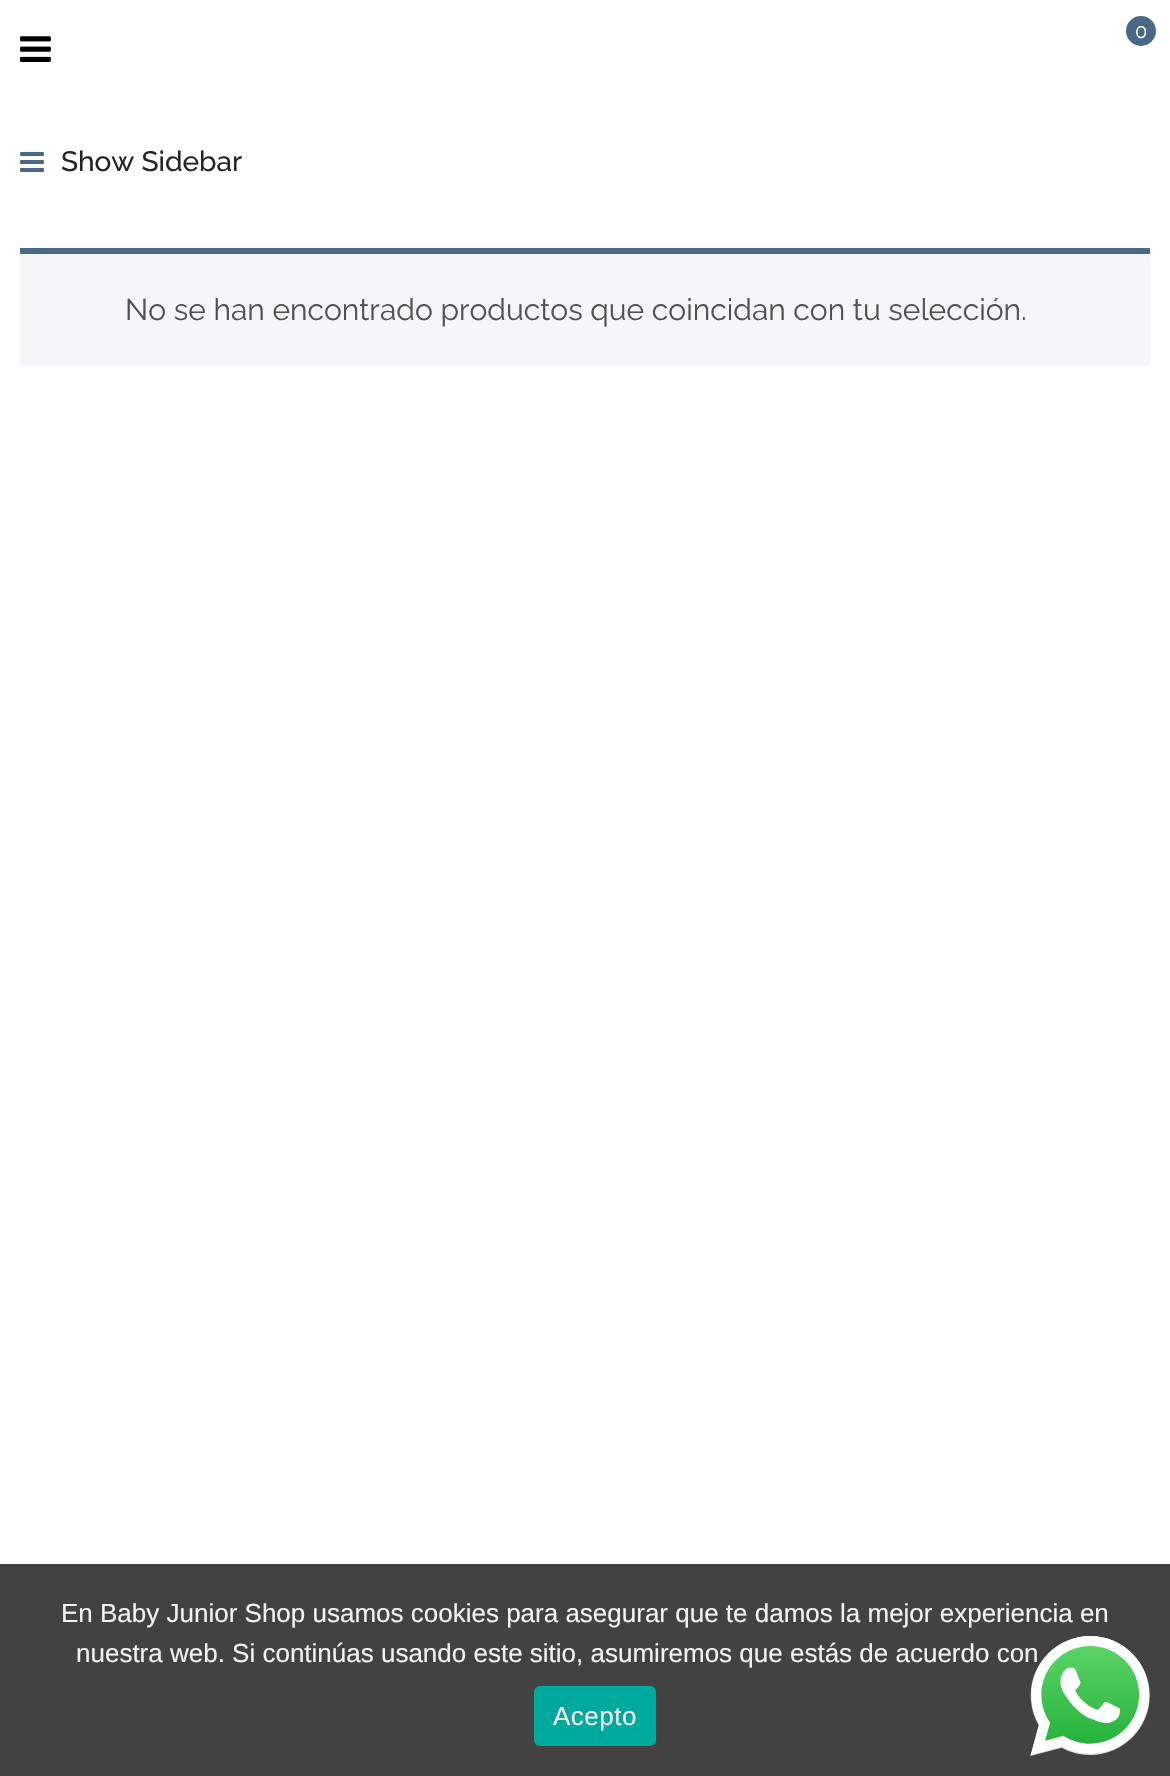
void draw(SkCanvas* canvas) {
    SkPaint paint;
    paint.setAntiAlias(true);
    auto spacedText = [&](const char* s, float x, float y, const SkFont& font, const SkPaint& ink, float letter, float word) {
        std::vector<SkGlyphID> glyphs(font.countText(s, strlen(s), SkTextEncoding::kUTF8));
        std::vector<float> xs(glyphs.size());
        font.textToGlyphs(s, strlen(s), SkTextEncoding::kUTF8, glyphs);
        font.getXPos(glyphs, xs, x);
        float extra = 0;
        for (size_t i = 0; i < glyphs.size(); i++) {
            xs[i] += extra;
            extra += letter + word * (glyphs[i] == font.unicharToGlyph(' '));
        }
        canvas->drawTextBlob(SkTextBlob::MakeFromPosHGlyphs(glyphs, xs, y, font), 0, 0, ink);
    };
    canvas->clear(0xFFFFFFFF);
    paint.setColor(0xFF486886);
    canvas->drawCircle(1141, 31, 15, paint);
    SkFont font1(fontMgr->matchFamilyStyle("Raleway", SkFontStyle::Normal()), 20);
    font1.setSubpixel(true);
    paint.setColor(0xFFFFFFFF);
    canvas->drawString("0", 1135, 38, font1, paint);
    canvas->drawImageRect(SkImages::DeferredFromEncodedData(SkData::MakeFromFileName("img1.png")), SkRect::MakeXYWH(20, 36, 31, 26), SkSamplingOptions());
    canvas->drawImageRect(SkImages::DeferredFromEncodedData(SkData::MakeFromFileName("img2.png")), SkRect::MakeXYWH(20, 152, 24, 20), SkSamplingOptions());
    SkFont font2(fontMgr->matchFamilyStyle("Raleway", SkFontStyle(500, SkFontStyle::kNormal_Width, SkFontStyle::kUpright_Slant)), 28);
    font2.setSubpixel(true);
    paint.setColor(0xFF252525);
    canvas->drawString("Show Sidebar", 61, 171, font2, paint);
    paint.setColor(0xFFF6F5F8);
    canvas->drawRect(SkRect::MakeXYWH(20, 254, 1130, 112), paint);
    paint.setColor(0xFF486886);
    canvas->drawRect(SkRect::MakeXYWH(20, 248, 1130, 6), paint);
    SkFont font3(fontMgr->matchFamilyStyle("Raleway", SkFontStyle::Normal()), 30);
    font3.setSubpixel(true);
    paint.setColor(0xFF515151);
    canvas->drawString("No se han encontrado productos que coincidan con tu selección.", 125, 320, font3, paint);
    paint.setColor(0xFF424242);
    canvas->drawRect(SkRect::MakeXYWH(0, 1564, 1170, 212), paint);
    SkFont font4(fontMgr->matchFamilyStyle("Liberation Sans", SkFontStyle::Normal()), 26);
    font4.setSubpixel(true);
    paint.setColor(0xFFF2F2F2);
    canvas->drawString("En Baby Junior Shop usamos cookies para asegurar que te damos la mejor experiencia en", 61, 1622, font4, paint);
    canvas->drawString("nuestra web. Si continúas usando este sitio, asumiremos que estás de acuerdo con", 76, 1662, font4, paint);
    paint.setColor(0xFF00A99D);
    canvas->drawRoundRect(SkRect::MakeXYWH(534, 1686, 122, 60), 6, 6, paint);
    paint.setColor(0xFFF2F2F2);
    spacedText("Acepto", 553, 1725, font4, paint, 0.5f, 0);
    canvas->drawImageRect(SkImages::DeferredFromEncodedData(SkData::MakeFromFileName("img3.png")), SkRect::MakeXYWH(1030, 1636, 120, 120), SkSamplingOptions());
}
